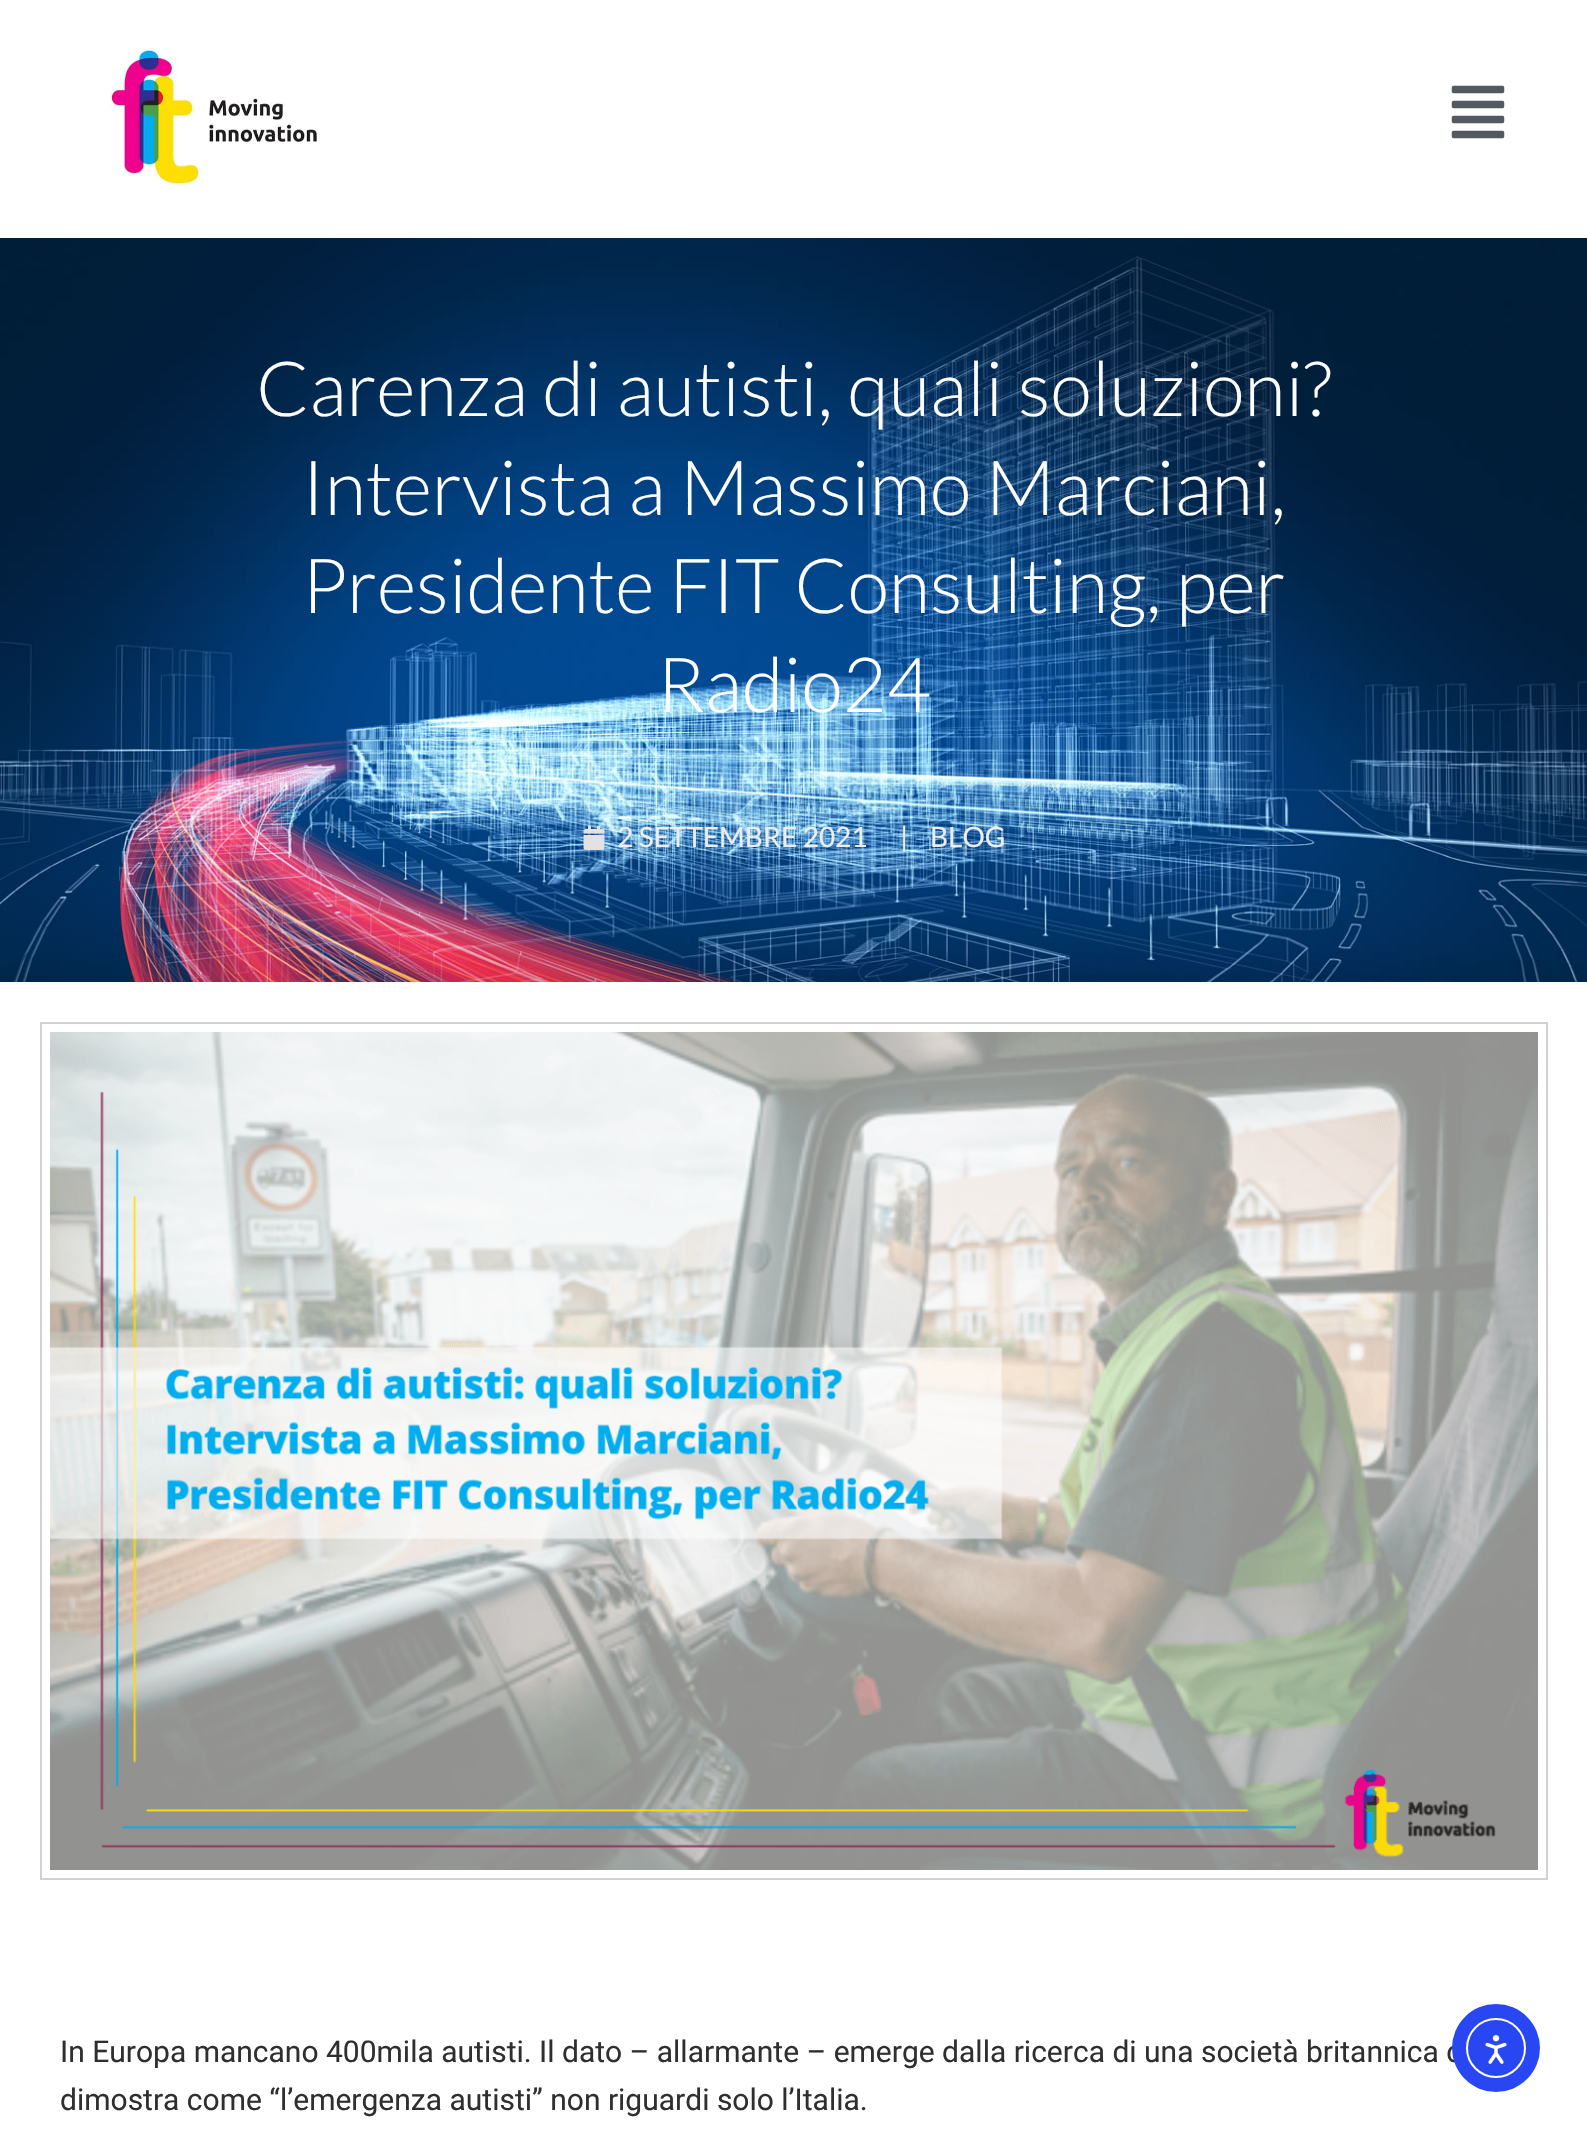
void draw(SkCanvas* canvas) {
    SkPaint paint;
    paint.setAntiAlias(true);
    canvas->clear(0xFFFFFFFF);
    canvas->drawImageRect(SkImages::DeferredFromEncodedData(SkData::MakeFromFileName("img1.png")), SkRect::MakeXYWH(107, 49, 211, 139), SkSamplingOptions());
    canvas->drawImageRect(SkImages::DeferredFromEncodedData(SkData::MakeFromFileName("img2.png")), SkRect::MakeXYWH(1451, 85, 54, 54), SkSamplingOptions());
    canvas->drawImageRect(SkImages::DeferredFromEncodedData(SkData::MakeFromFileName("img3.png")), SkRect::MakeXYWH(0, 238, 1587, 744), SkSamplingOptions());
    SkFont font1(fontMgr->matchFamilyStyle("Lato", SkFontStyle(300, SkFontStyle::kNormal_Width, SkFontStyle::kUpright_Slant)), 76);
    font1.setSubpixel(true);
    paint.setColor(0xFFFFFFFF);
    canvas->drawString("Carenza di autisti, quali soluzioni?", 256, 416, font1, paint);
    canvas->drawString("Intervista a Massimo Marciani,", 302, 515, font1, paint);
    canvas->drawString("Presidente FIT Consulting, per", 302, 613, font1, paint);
    canvas->drawString("Radio24", 657, 712, font1, paint);
    canvas->drawImageRect(SkImages::DeferredFromEncodedData(SkData::MakeFromFileName("img4.png")), SkRect::MakeXYWH(583, 826, 22, 24), SkSamplingOptions());
    SkFont font2(fontMgr->matchFamilyStyle("Lato", SkFontStyle::Normal()), 28);
    font2.setSubpixel(true);
    paint.setColor(0xFFEDEDED);
    canvas->drawString("2 SETTEMBRE 2021", 617, 847, font2, paint);
    canvas->drawString("|", 900, 847, font2, paint);
    canvas->drawString("BLOG", 930, 847, font2, paint);
    paint.setColor(0x17000000);
    paint.setMaskFilter(SkMaskFilter::MakeBlur(kNormal_SkBlurStyle, 20));
    canvas->drawRect(SkRect::MakeXYWH(0, 982, 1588, 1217), paint);
    paint.setMaskFilter(nullptr);
    paint.setColor(0xFFFFFFFF);
    canvas->drawRect(SkRect::MakeXYWH(0, 982, 1587, 1157), paint);
    paint.setStyle(SkPaint::kStroke_Style);
    paint.setStrokeWidth(2);
    paint.setColor(0xFFD1D1D1);
    canvas->drawRect(SkRect::MakeXYWH(41, 1023, 1506, 856), paint);
    canvas->drawImageRect(SkImages::DeferredFromEncodedData(SkData::MakeFromFileName("img5.png")), SkRect::MakeXYWH(50, 1032, 1488, 838), SkSamplingOptions());
    SkFont font3(fontMgr->matchFamilyStyle("Roboto", SkFontStyle::Normal()), 30);
    font3.setSubpixel(true);
    paint.setStyle(SkPaint::kFill_Style);
    paint.setColor(0xFF302E2E);
    canvas->drawString("In Europa mancano 400mila autisti. Il dato – allarmante – emerge dalla ricerca di una società britannica c", 60, 2062, font3, paint);
    canvas->drawString("dimostra come “l’emergenza autisti” non riguardi solo l’Italia.", 60, 2110, font3, paint);
    paint.setColor(0xFF2847F3);
    canvas->drawCircle(1496, 2048, 44, paint);
    paint.setStyle(SkPaint::kStroke_Style);
    paint.setColor(0xFFFFFFFF);
    canvas->drawCircle(1496, 2048, 29, paint);
    canvas->drawImageRect(SkImages::DeferredFromEncodedData(SkData::MakeFromFileName("img6.png")), SkRect::MakeXYWH(1485, 2035, 22, 29), SkSamplingOptions());
}
